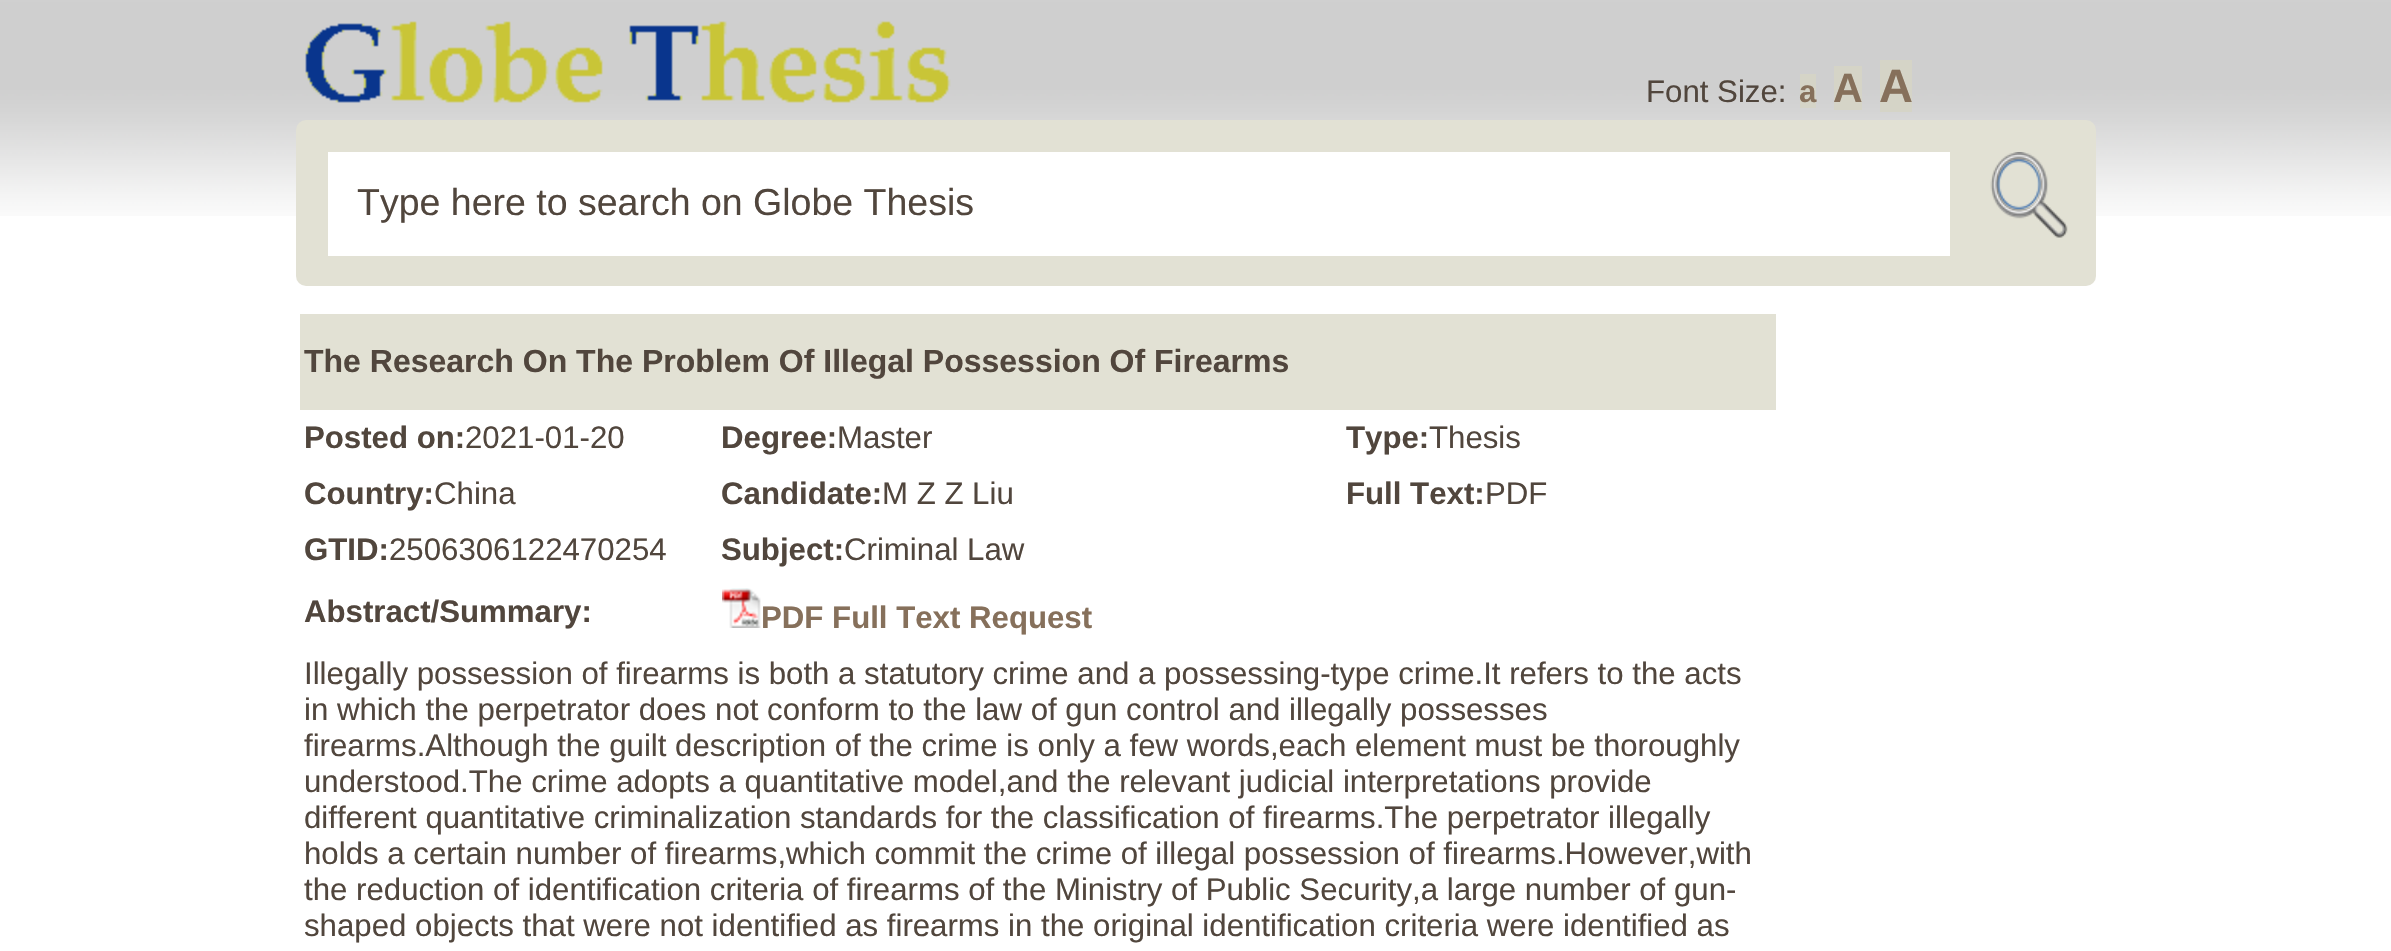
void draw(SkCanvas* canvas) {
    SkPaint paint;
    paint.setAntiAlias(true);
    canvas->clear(0xFFFFFFFF);
    canvas->drawImageRect(SkImages::DeferredFromEncodedData(SkData::MakeFromFileName("img1.png")), SkRect::MakeXYWH(0, 0, 2391, 216), SkSamplingOptions());
    canvas->drawImageRect(SkImages::DeferredFromEncodedData(SkData::MakeFromFileName("img2.png")), SkRect::MakeXYWH(305, 21, 646, 82), SkSamplingOptions());
    SkFont font1(fontMgr->matchFamilyStyle("Liberation Sans", SkFontStyle::Normal()), 31.2f);
    font1.setSubpixel(true);
    paint.setColor(0xFF51463D);
    canvas->drawString("Font Size:", 1646, 102, font1, paint);
    paint.setColor(0xFFD5D4C7);
    canvas->drawRect(SkRect::MakeXYWH(1800, 74, 16, 34), paint);
    SkFont font2(fontMgr->matchFamilyStyle("Liberation Sans", SkFontStyle::Bold()), 31.2f);
    font2.setSubpixel(true);
    paint.setColor(0xFF86705B);
    canvas->drawString("a", 1799, 102, font2, paint);
    paint.setColor(0xFFD5D4C7);
    canvas->drawRect(SkRect::MakeXYWH(1834, 66, 28, 44), paint);
    SkFont font3(fontMgr->matchFamilyStyle("Liberation Sans", SkFontStyle::Bold()), 41);
    font3.setSubpixel(true);
    paint.setColor(0xFF86705B);
    canvas->drawString("A", 1833, 102, font3, paint);
    paint.setColor(0xFFD5D4C7);
    canvas->drawRect(SkRect::MakeXYWH(1880, 60, 32, 52), paint);
    SkFont font4(fontMgr->matchFamilyStyle("Liberation Sans", SkFontStyle::Bold()), 47);
    font4.setSubpixel(true);
    paint.setColor(0xFF86705B);
    canvas->drawString("A", 1879, 102, font4, paint);
    paint.setColor(0xFFE2E1D4);
    canvas->drawRoundRect(SkRect::MakeXYWH(296, 120, 1800, 166), 10, 10, paint);
    paint.setColor(0xFFFFFFFF);
    canvas->drawRect(SkRect::MakeXYWH(328, 152, 1622, 104), paint);
    SkFont font5(fontMgr->matchFamilyStyle("Liberation Sans", SkFontStyle::Normal()), 37.5f);
    font5.setSubpixel(true);
    paint.setColor(0xFF51463D);
    canvas->drawString("Type here to search on Globe Thesis", 357, 215, font5, paint);
    canvas->drawImageRect(SkImages::DeferredFromEncodedData(SkData::MakeFromFileName("img3.png")), SkRect::MakeXYWH(1990, 152, 78, 86), SkSamplingOptions());
    paint.setColor(0xFFE2E1D4);
    canvas->drawRect(SkRect::MakeXYWH(300, 314, 1476, 96), paint);
    SkFont font6(fontMgr->matchFamilyStyle("Liberation Sans", SkFontStyle::Bold()), 32);
    font6.setSubpixel(true);
    paint.setColor(0xFF51463D);
    canvas->drawString("The Research On The Problem Of Illegal Possession Of Firearms", 304, 372, font6, paint);
    canvas->drawString("Posted on:", 304, 448, font2, paint);
    canvas->drawString("2021-01-20", 465, 448, font1, paint);
    canvas->drawString("Degree:", 721, 448, font2, paint);
    canvas->drawString("Master", 837, 448, font1, paint);
    canvas->drawString("Type:", 1346, 448, font2, paint);
    canvas->drawString("Thesis", 1429, 448, font1, paint);
    canvas->drawString("Country:", 304, 504, font2, paint);
    canvas->drawString("China", 434, 504, font1, paint);
    canvas->drawString("Candidate:", 721, 504, font2, paint);
    canvas->drawString("M Z Z Liu", 882, 504, font1, paint);
    canvas->drawString("Full Text:", 1346, 504, font2, paint);
    canvas->drawString("PDF", 1485, 504, font1, paint);
    canvas->drawString("GTID:", 304, 560, font2, paint);
    canvas->drawString("2506306122470254", 389, 560, font1, paint);
    canvas->drawString("Subject:", 721, 560, font2, paint);
    canvas->drawString("Criminal Law", 844, 560, font1, paint);
    canvas->drawString("Abstract/Summary:", 304, 622, font2, paint);
    canvas->drawImageRect(SkImages::DeferredFromEncodedData(SkData::MakeFromFileName("img4.png")), SkRect::MakeXYWH(722, 588, 39, 40), SkSamplingOptions());
    paint.setColor(0xFF86705B);
    canvas->drawString("PDF Full Text Request", 761, 628, font2, paint);
    paint.setColor(0xFF51463D);
    canvas->drawString("Illegally possession of firearms is both a statutory crime and a possessing-type crime.It refers to the acts", 304, 684, font1, paint);
    canvas->drawString("in which the perpetrator does not conform to the law of gun control and illegally possesses", 304, 720, font1, paint);
    canvas->drawString("firearms.Although the guilt description of the crime is only a few words,each element must be thoroughly", 304, 756, font1, paint);
    canvas->drawString("understood.The crime adopts a quantitative model,and the relevant judicial interpretations provide", 304, 792, font1, paint);
    canvas->drawString("different quantitative criminalization standards for the classification of firearms.The perpetrator illegally", 304, 828, font1, paint);
    canvas->drawString("holds a certain number of firearms,which commit the crime of illegal possession of firearms.However,with", 304, 864, font1, paint);
    canvas->drawString("the reduction of identification criteria of firearms of the Ministry of Public Security,a large number of gun-", 304, 900, font1, paint);
    canvas->drawString("shaped objects that were not identified as firearms in the original identification criteria were identified as", 304, 936, font1, paint);
}
